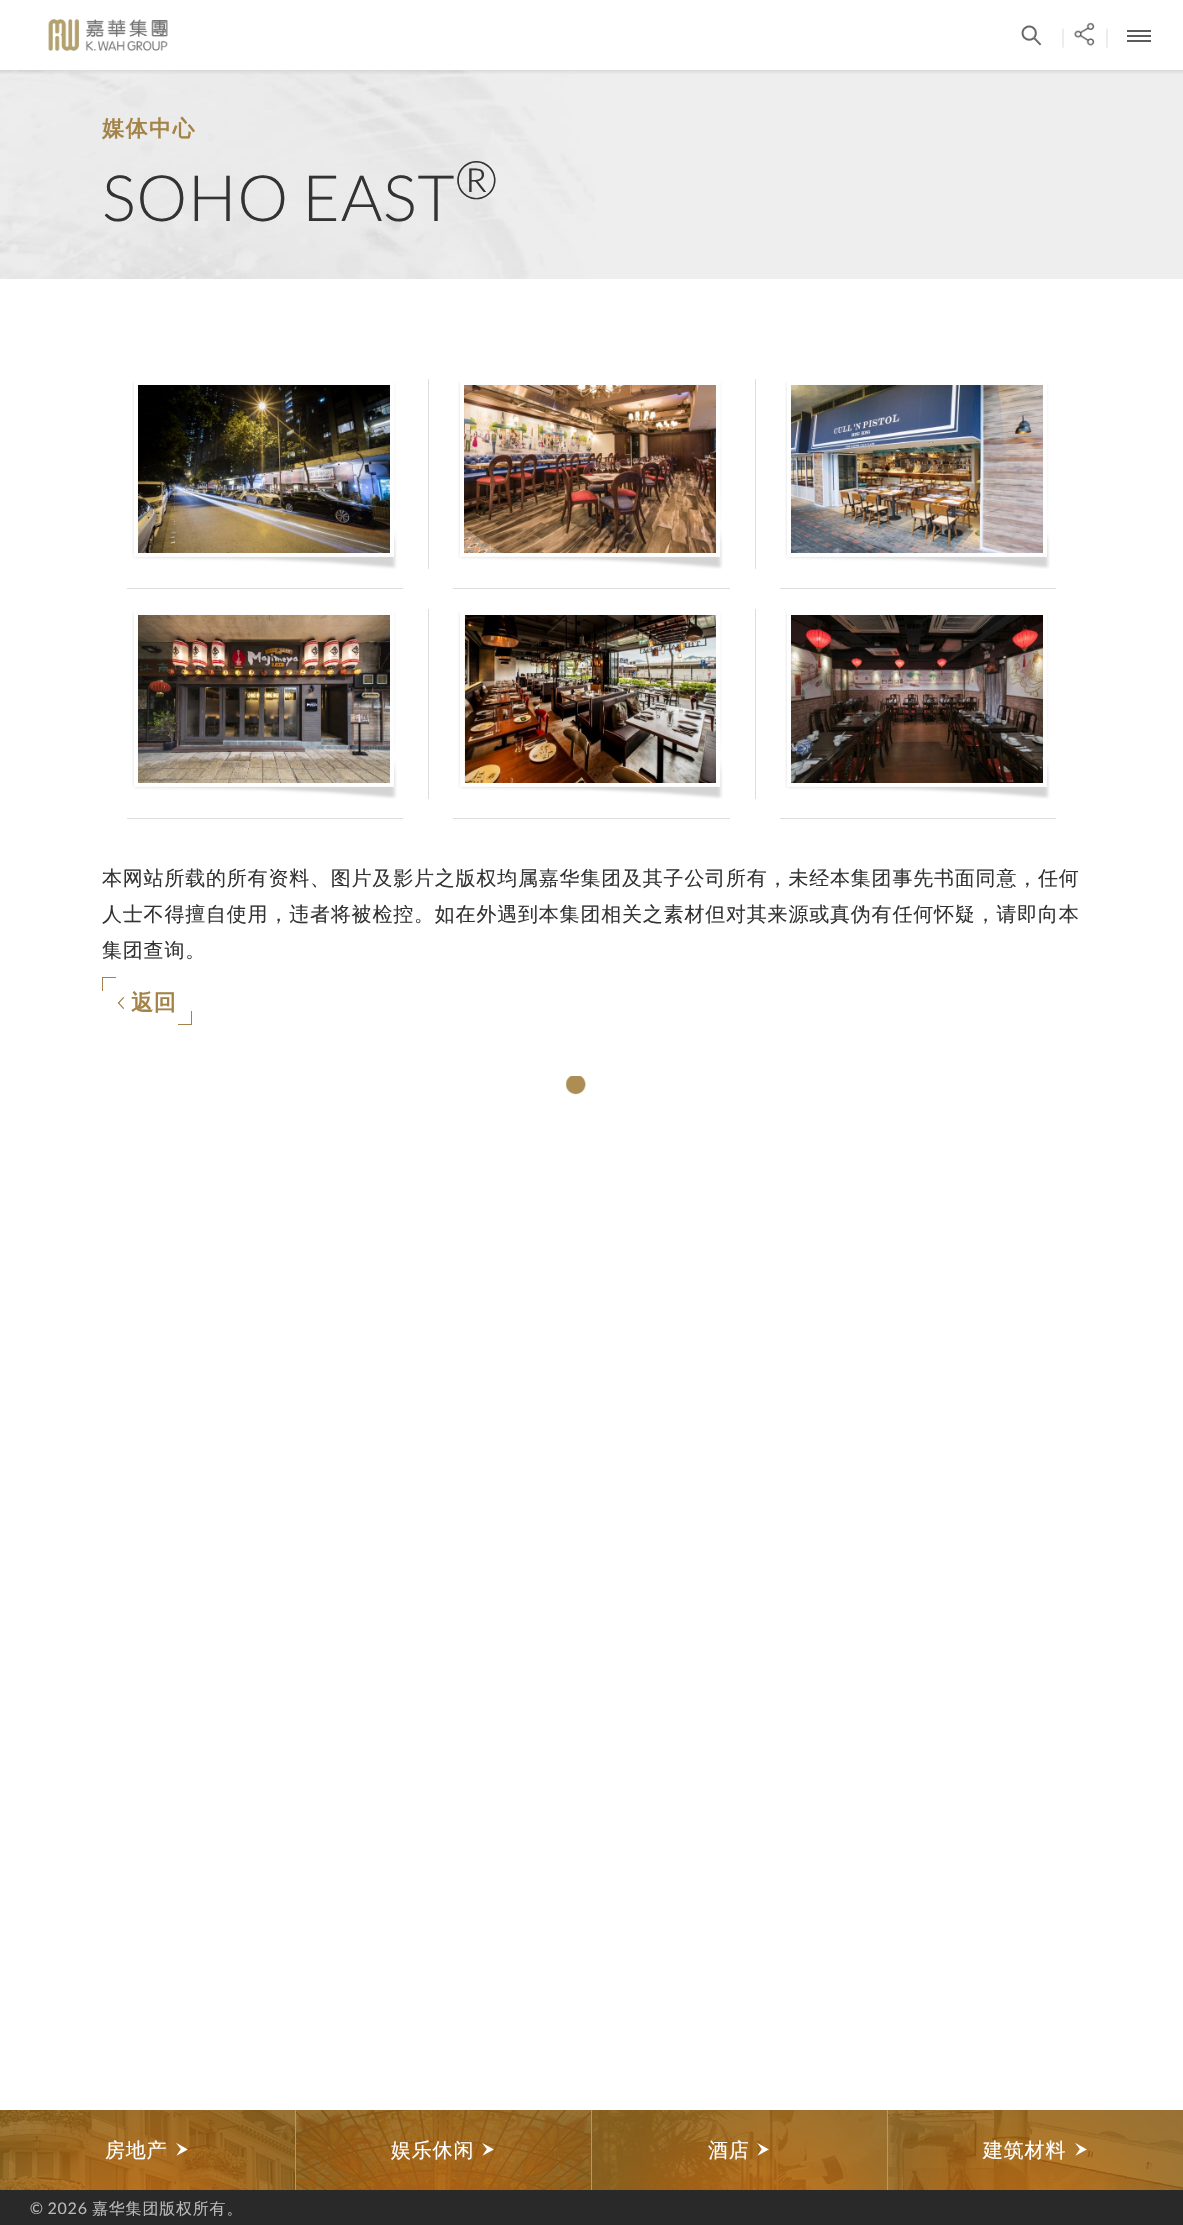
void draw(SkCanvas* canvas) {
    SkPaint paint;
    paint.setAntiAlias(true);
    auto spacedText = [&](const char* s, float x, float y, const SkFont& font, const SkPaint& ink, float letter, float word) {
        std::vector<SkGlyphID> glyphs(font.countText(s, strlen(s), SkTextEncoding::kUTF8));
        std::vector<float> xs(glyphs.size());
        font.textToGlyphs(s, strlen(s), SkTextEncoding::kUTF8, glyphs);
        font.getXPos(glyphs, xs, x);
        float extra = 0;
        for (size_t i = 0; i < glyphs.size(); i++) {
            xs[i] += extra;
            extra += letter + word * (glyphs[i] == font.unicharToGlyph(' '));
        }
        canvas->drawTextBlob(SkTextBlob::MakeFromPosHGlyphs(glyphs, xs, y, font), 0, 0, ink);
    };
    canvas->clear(0xFFFFFFFF);
    canvas->drawImageRect(SkImages::DeferredFromEncodedData(SkData::MakeFromFileName("img1.png")), SkRect::MakeXYWH(565, 1076, 21, 19), SkSamplingOptions());
    paint.setColor(0xFFEEEEEE);
    canvas->drawRect(SkRect::MakeXYWH(595, 70, 588, 209), paint);
    canvas->drawImageRect(SkImages::DeferredFromEncodedData(SkData::MakeFromFileName("img7.png")), SkRect::MakeXYWH(0, 70, 595, 209), SkSamplingOptions());
    canvas->drawImageRect(SkImages::DeferredFromEncodedData(SkData::MakeFromFileName("img2.png")), SkRect::MakeXYWH(0, 70, 1183, 4), SkSamplingOptions());
    canvas->drawImageRect(SkImages::DeferredFromEncodedData(SkData::MakeFromFileName("img3.png")), SkRect::MakeXYWH(48, 19, 120, 32), SkSamplingOptions());
    canvas->drawImageRect(SkImages::DeferredFromEncodedData(SkData::MakeFromFileName("img4.png")), SkRect::MakeXYWH(1021, 25, 21, 21), SkSamplingOptions());
    SkFont font1(fontMgr->matchFamilyStyle("Lato", SkFontStyle::Normal()), 20);
    font1.setSubpixel(true);
    paint.setColor(0xFFE9E9E9);
    spacedText("|", 1060, 44, font1, paint, 0.8f, 0);
    canvas->drawImageRect(SkImages::DeferredFromEncodedData(SkData::MakeFromFileName("img5.png")), SkRect::MakeXYWH(1074, 22, 21, 24), SkSamplingOptions());
    spacedText("|", 1104, 44, font1, paint, 0.8f, 0);
    canvas->drawImageRect(SkImages::DeferredFromEncodedData(SkData::MakeFromFileName("img6.png")), SkRect::MakeXYWH(1127, 30, 24, 12), SkSamplingOptions());
    SkFont font2(fontMgr->matchFamilyStyle("WenQuanYi Zen Hei", SkFontStyle::Bold()), 22);
    font2.setSubpixel(true);
    paint.setColor(0xFFA48348);
    spacedText("媒体中心", 102, 136, font2, paint, 1.5f, 0);
    SkFont font3(fontMgr->matchFamilyStyle("Lato", SkFontStyle(300, SkFontStyle::kNormal_Width, SkFontStyle::kUpright_Slant)), 64);
    font3.setSubpixel(true);
    paint.setColor(0xFF333333);
    spacedText("SOHO EAST", 102, 221, font3, paint, 0.8f, 0);
    SkFont font4(fontMgr->matchFamilyStyle("Lato", SkFontStyle(300, SkFontStyle::kNormal_Width, SkFontStyle::kUpright_Slant)), 53);
    font4.setSubpixel(true);
    spacedText("®", 455, 199, font4, paint, 0.8f, 0);
    canvas->drawImageRect(SkImages::DeferredFromEncodedData(SkData::MakeFromFileName("img8.png")), SkRect::MakeXYWH(132, 382, 265, 187), SkSamplingOptions());
    canvas->drawImageRect(SkImages::DeferredFromEncodedData(SkData::MakeFromFileName("img9.png")), SkRect::MakeXYWH(138, 385, 252, 168), SkSamplingOptions());
    paint.setColor(0xFFDDDDDD);
    canvas->drawRect(SkRect::MakeXYWH(127, 588, 276, 1), paint);
    canvas->drawRect(SkRect::MakeXYWH(428, 379, 1, 190), paint);
    canvas->drawImageRect(SkImages::DeferredFromEncodedData(SkData::MakeFromFileName("img8.png")), SkRect::MakeXYWH(458, 382, 265, 187), SkSamplingOptions());
    canvas->drawImageRect(SkImages::DeferredFromEncodedData(SkData::MakeFromFileName("img10.png")), SkRect::MakeXYWH(464, 385, 252, 168), SkSamplingOptions());
    canvas->drawRect(SkRect::MakeXYWH(453, 588, 277, 1), paint);
    canvas->drawRect(SkRect::MakeXYWH(755, 379, 1, 190), paint);
    canvas->drawImageRect(SkImages::DeferredFromEncodedData(SkData::MakeFromFileName("img8.png")), SkRect::MakeXYWH(785, 382, 265, 187), SkSamplingOptions());
    canvas->drawImageRect(SkImages::DeferredFromEncodedData(SkData::MakeFromFileName("img11.png")), SkRect::MakeXYWH(791, 385, 252, 168), SkSamplingOptions());
    canvas->drawRect(SkRect::MakeXYWH(780, 588, 276, 1), paint);
    canvas->drawImageRect(SkImages::DeferredFromEncodedData(SkData::MakeFromFileName("img8.png")), SkRect::MakeXYWH(132, 612, 265, 187), SkSamplingOptions());
    canvas->drawImageRect(SkImages::DeferredFromEncodedData(SkData::MakeFromFileName("img12.png")), SkRect::MakeXYWH(138, 615, 252, 168), SkSamplingOptions());
    canvas->drawRect(SkRect::MakeXYWH(127, 818, 276, 1), paint);
    canvas->drawRect(SkRect::MakeXYWH(428, 609, 1, 190), paint);
    canvas->drawImageRect(SkImages::DeferredFromEncodedData(SkData::MakeFromFileName("img8.png")), SkRect::MakeXYWH(458, 612, 265, 187), SkSamplingOptions());
    paint.setColor(0xFFFAF5EF);
    canvas->drawRect(SkRect::MakeXYWH(464, 615, 1, 168), paint);
    canvas->drawImageRect(SkImages::DeferredFromEncodedData(SkData::MakeFromFileName("img13.png")), SkRect::MakeXYWH(465, 615, 251, 168), SkSamplingOptions());
    paint.setColor(0xFFDDDDDD);
    canvas->drawRect(SkRect::MakeXYWH(453, 818, 277, 1), paint);
    canvas->drawRect(SkRect::MakeXYWH(755, 609, 1, 190), paint);
    canvas->drawImageRect(SkImages::DeferredFromEncodedData(SkData::MakeFromFileName("img8.png")), SkRect::MakeXYWH(785, 612, 265, 187), SkSamplingOptions());
    canvas->drawImageRect(SkImages::DeferredFromEncodedData(SkData::MakeFromFileName("img14.png")), SkRect::MakeXYWH(791, 615, 252, 168), SkSamplingOptions());
    canvas->drawRect(SkRect::MakeXYWH(780, 818, 276, 1), paint);
    SkFont font5(fontMgr->matchFamilyStyle("WenQuanYi Zen Hei", SkFontStyle(500, SkFontStyle::kNormal_Width, SkFontStyle::kUpright_Slant)), 20);
    font5.setSubpixel(true);
    paint.setColor(0xFF333333);
    spacedText("本网站所载的所有资料、图片及影片之版权均属嘉华集团及其子公司所有，未经本集团事先书面同意，任何", 102, 885, font5, paint, 0.8f, 0);
    spacedText("人士不得擅自使用，违者将被检控。如在外遇到本集团相关之素材但对其来源或真伪有任何怀疑，请即向本", 102, 921, font5, paint, 0.8f, 0);
    spacedText("集团查询。", 102, 957, font5, paint, 0.8f, 0);
    paint.setColor(0xFFA48348);
    canvas->drawRect(SkRect::MakeXYWH(102, 977, 14, 1), paint);
    canvas->drawRect(SkRect::MakeXYWH(102, 977, 1, 14), paint);
    canvas->drawImageRect(SkImages::DeferredFromEncodedData(SkData::MakeFromFileName("img15.png")), SkRect::MakeXYWH(118, 997, 6, 12), SkSamplingOptions());
    spacedText("返回", 131, 1010, font2, paint, 0.8f, 0);
    canvas->drawRect(SkRect::MakeXYWH(191, 1011, 1, 14), paint);
    canvas->drawRect(SkRect::MakeXYWH(178, 1024, 14, 1), paint);
    canvas->drawImageRect(SkImages::DeferredFromEncodedData(SkData::MakeFromFileName("img16.png")), SkRect::MakeXYWH(0, 2110, 295, 80), SkSamplingOptions());
    paint.setColor(0xFFAE997A);
    canvas->drawRect(SkRect::MakeXYWH(295, 2110, 1, 80), paint);
    paint.setColor(0xFFFFFFFF);
    spacedText("房地产", 105, 2157, font5, paint, 0.8f, 0);
    canvas->drawImageRect(SkImages::DeferredFromEncodedData(SkData::MakeFromFileName("img17.png")), SkRect::MakeXYWH(176, 2142, 12, 14), SkSamplingOptions());
    canvas->drawImageRect(SkImages::DeferredFromEncodedData(SkData::MakeFromFileName("img18.png")), SkRect::MakeXYWH(296, 2110, 295, 80), SkSamplingOptions());
    paint.setColor(0xFFAE997A);
    canvas->drawRect(SkRect::MakeXYWH(591, 2110, 1, 80), paint);
    paint.setColor(0xFFFFFFFF);
    spacedText("娱乐休闲", 391, 2157, font5, paint, 0.8f, 0);
    canvas->drawImageRect(SkImages::DeferredFromEncodedData(SkData::MakeFromFileName("img19.png")), SkRect::MakeXYWH(482, 2142, 12, 14), SkSamplingOptions());
    canvas->drawImageRect(SkImages::DeferredFromEncodedData(SkData::MakeFromFileName("img20.png")), SkRect::MakeXYWH(592, 2110, 295, 80), SkSamplingOptions());
    paint.setColor(0xFFAE997A);
    canvas->drawRect(SkRect::MakeXYWH(887, 2110, 1, 80), paint);
    paint.setColor(0xFFFFFFFF);
    spacedText("酒店", 708, 2157, font5, paint, 0.8f, 0);
    canvas->drawImageRect(SkImages::DeferredFromEncodedData(SkData::MakeFromFileName("img21.png")), SkRect::MakeXYWH(757, 2142, 12, 14), SkSamplingOptions());
    canvas->drawImageRect(SkImages::DeferredFromEncodedData(SkData::MakeFromFileName("img22.png")), SkRect::MakeXYWH(888, 2110, 295, 80), SkSamplingOptions());
    spacedText("建筑材料", 983, 2157, font5, paint, 0.8f, 0);
    canvas->drawImageRect(SkImages::DeferredFromEncodedData(SkData::MakeFromFileName("img23.png")), SkRect::MakeXYWH(1075, 2142, 12, 14), SkSamplingOptions());
    paint.setColor(0xFF292929);
    canvas->drawRect(SkRect::MakeXYWH(0, 2190, 1183, 35), paint);
    SkFont font6(fontMgr->matchFamilyStyle("Lato", SkFontStyle::Normal()), 16);
    font6.setSubpixel(true);
    paint.setColor(0xFFB9B9B9);
    spacedText("© 2026", 30, 2214, font6, paint, 0.8f, 0);
    SkFont font7(fontMgr->matchFamilyStyle("WenQuanYi Zen Hei", SkFontStyle(500, SkFontStyle::kNormal_Width, SkFontStyle::kUpright_Slant)), 16);
    font7.setSubpixel(true);
    spacedText("嘉华集团版权所有。", 92, 2214, font7, paint, 0.8f, 0);
}
